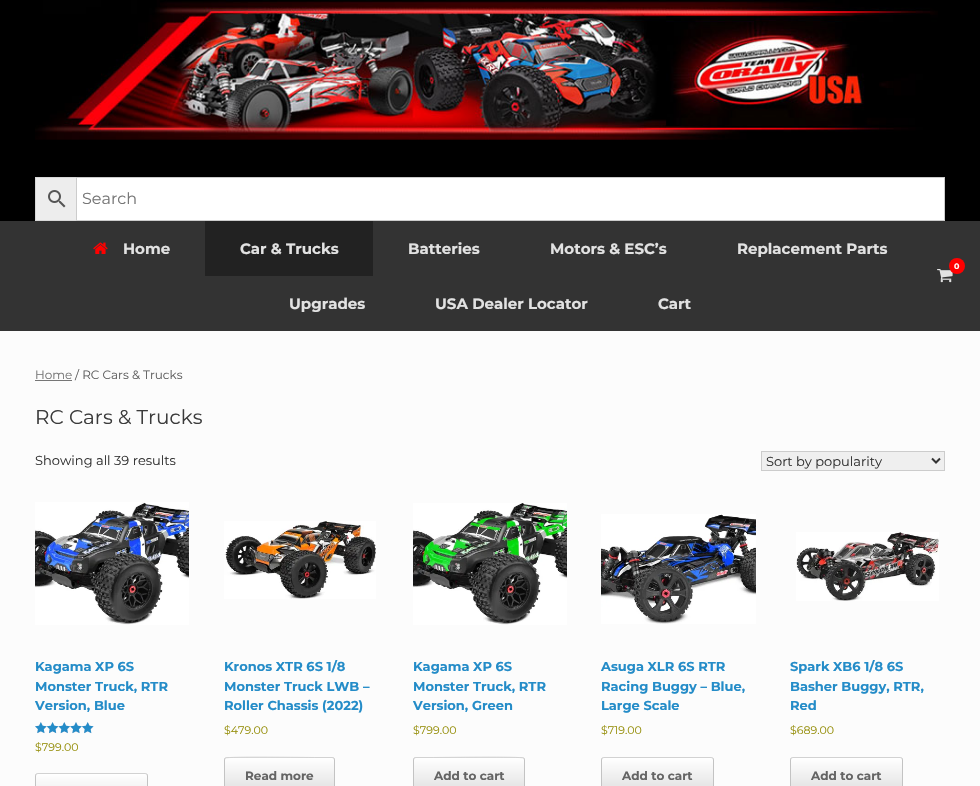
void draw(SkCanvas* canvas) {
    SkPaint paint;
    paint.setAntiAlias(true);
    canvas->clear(0xFF000000);
    canvas->drawImageRect(SkImages::DeferredFromEncodedData(SkData::MakeFromFileName("img1.png")), SkRect::MakeXYWH(35, 0, 903, 140), SkSamplingOptions());
    paint.setColor(0xFFEDEDED);
    canvas->drawRect(SkRect::MakeXYWH(35.5f, 177.5f, 41, 43), paint);
    paint.setStyle(SkPaint::kStroke_Style);
    paint.setStrokeWidth(1);
    paint.setColor(0xFFD8D8D8);
    canvas->drawRect(SkRect::MakeXYWH(35.5f, 177.5f, 41, 43), paint);
    canvas->drawImageRect(SkImages::DeferredFromEncodedData(SkData::MakeFromFileName("img2.png")), SkRect::MakeXYWH(48, 190, 18, 18), SkSamplingOptions());
    paint.setStyle(SkPaint::kFill_Style);
    paint.setColor(0xFFFFFFFF);
    canvas->drawRect(SkRect::MakeXYWH(76.5f, 177.5f, 868, 43), paint);
    paint.setStyle(SkPaint::kStroke_Style);
    paint.setColor(0xFFCCCCCC);
    canvas->drawRect(SkRect::MakeXYWH(76.5f, 177.5f, 868, 43), paint);
    SkFont font1(fontMgr->matchFamilyStyle("Montserrat", SkFontStyle::Normal()), 16);
    font1.setSubpixel(true);
    paint.setStyle(SkPaint::kFill_Style);
    paint.setColor(0xFF767676);
    canvas->drawString("Search", 82, 204, font1, paint);
    paint.setColor(0xFF333333);
    canvas->drawRect(SkRect::MakeXYWH(0, 221, 980, 110), paint);
    canvas->drawImageRect(SkImages::DeferredFromEncodedData(SkData::MakeFromFileName("img3.png")), SkRect::MakeXYWH(93, 242, 15, 12), SkSamplingOptions());
    SkFont font2(fontMgr->matchFamilyStyle("Montserrat", SkFontStyle::Bold()), 15);
    font2.setSubpixel(true);
    paint.setColor(0xFFE2E2E2);
    canvas->drawString("Home", 123, 254, font2, paint);
    paint.setColor(0xFF222222);
    canvas->drawRect(SkRect::MakeXYWH(205, 221, 168, 55), paint);
    paint.setColor(0xFFE2E2E2);
    canvas->drawString("Car & Trucks", 240, 254, font2, paint);
    canvas->drawString("Batteries", 408, 254, font2, paint);
    canvas->drawString("Motors & ESC’s", 550, 254, font2, paint);
    canvas->drawString("Replacement Parts", 737, 254, font2, paint);
    canvas->drawString("Upgrades", 289, 309, font2, paint);
    canvas->drawString("USA Dealer Locator", 435, 309, font2, paint);
    canvas->drawString("Cart", 658, 309, font2, paint);
    canvas->drawImageRect(SkImages::DeferredFromEncodedData(SkData::MakeFromFileName("img4.png")), SkRect::MakeXYWH(937, 269, 16, 14), SkSamplingOptions());
    paint.setColor(0xFFFF0000);
    canvas->drawCircle(957, 266, 8, paint);
    SkFont font3(fontMgr->matchFamilyStyle("Montserrat", SkFontStyle::Bold()), 8);
    font3.setSubpixel(true);
    paint.setColor(0xFFFFFFFF);
    canvas->drawString("0", 954, 269, font3, paint);
    paint.setColor(0xFFFCFCFC);
    canvas->drawRect(SkRect::MakeXYWH(0, 331, 980, 455), paint);
    SkFont font4(fontMgr->matchFamilyStyle("Montserrat", SkFontStyle::Normal()), 12);
    font4.setSubpixel(true);
    paint.setColor(0xFF767676);
    canvas->drawString("Home", 35, 379, font4, paint);
    canvas->drawRect(SkRect::MakeXYWH(35, 380, 37, 1), paint);
    paint.setColor(0xFF5E5E5E);
    canvas->drawString("/ RC Cars & Trucks", 75, 379, font4, paint);
    SkFont font5(fontMgr->matchFamilyStyle("Montserrat", SkFontStyle::Normal()), 20);
    font5.setSubpixel(true);
    paint.setColor(0xFF3B3B3B);
    canvas->drawString("RC Cars & Trucks", 35, 424, font5, paint);
    SkFont font6(fontMgr->matchFamilyStyle("Montserrat", SkFontStyle::Normal()), 13);
    font6.setSubpixel(true);
    paint.setColor(0xFF333333);
    canvas->drawString("Showing all 39 results", 35, 465, font6, paint);
    paint.setColor(0xFFEFEFEF);
    canvas->drawRect(SkRect::MakeXYWH(761.5f, 451.5f, 183, 19), paint);
    paint.setStyle(SkPaint::kStroke_Style);
    paint.setColor(0xFFCCCCCC);
    canvas->drawRect(SkRect::MakeXYWH(761.5f, 451.5f, 183, 19), paint);
    paint.setStrokeWidth(2);
    paint.setColor(0xFF333333);
    canvas->drawPath(SkPathBuilder().moveTo(932, 458.5f).lineTo(936, 462.5f).lineTo(940, 458.5f).detach(), paint);
    paint.setStyle(SkPaint::kFill_Style);
    canvas->drawString("Sort by popularity", 766, 466, font6, paint);
    canvas->drawImageRect(SkImages::DeferredFromEncodedData(SkData::MakeFromFileName("img5.png")), SkRect::MakeXYWH(35, 502, 154, 123), SkSamplingOptions());
    SkFont font7(fontMgr->matchFamilyStyle("Montserrat", SkFontStyle::Bold()), 13);
    font7.setSubpixel(true);
    paint.setColor(0xFF248CC8);
    canvas->drawString("Kagama XP 6S", 35, 671, font7, paint);
    canvas->drawString("Monster Truck, RTR", 35, 691, font7, paint);
    canvas->drawString("Version, Blue", 35, 710, font7, paint);
    canvas->drawImageRect(SkImages::DeferredFromEncodedData(SkData::MakeFromFileName("img6.png")), SkRect::MakeXYWH(35, 722, 59, 11), SkSamplingOptions());
    canvas->drawImageRect(SkImages::DeferredFromEncodedData(SkData::MakeFromFileName("img7.png")), SkRect::MakeXYWH(35, 722, 59, 12), SkSamplingOptions());
    SkFont font8(fontMgr->matchFamilyStyle("Montserrat", SkFontStyle::Normal()), 11);
    font8.setSubpixel(true);
    paint.setColor(0xFF958E09);
    canvas->drawString("$799.00", 35, 751, font8, paint);
    canvas->save();
    canvas->clipPath(SkPathBuilder().moveTo(38, 773).lineTo(145, 773).cubicTo(146.5f, 773, 148, 774.5f, 148, 776).lineTo(148, 808).cubicTo(148, 809.5f, 146.5f, 811, 145, 811).lineTo(38, 811).cubicTo(36.5f, 811, 35, 809.5f, 35, 808).lineTo(35, 776).cubicTo(35, 774.5f, 36.5f, 773, 38, 773).close().detach(), true);
    {
        const SkColor colors[] = {0xFFDFDFDF, 0xFFFFFFFF};
        const float stops[] = {0, 1};
        const SkPoint ends[] = {{36, 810}, {36, 774}};
        paint.setShader(SkGradientShader::MakeLinear(ends, colors, stops, 2, SkTileMode::kClamp));
        paint.setAlpha(255);
    }
    canvas->drawRect(SkRect::MakeXYWH(35, 774, 113, 12), paint);
    canvas->restore();
    paint.setStyle(SkPaint::kStroke_Style);
    paint.setStrokeWidth(1);
    paint.setShader(nullptr);
    paint.setColor(0xFFD2D2D2);
    canvas->drawPath(SkPathBuilder().moveTo(36, 774).lineTo(38, 773.5f).lineTo(145, 773.5f).lineTo(147, 774).detach(), paint);
    paint.setColor(0xFFC3C3C3);
    canvas->drawPath(SkPathBuilder().moveTo(147, 774).cubicTo(147, 774.5f, 147.5f, 775.5f, 147.5f, 776).lineTo(147.5f, 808).cubicTo(147.5f, 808.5f, 147, 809.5f, 147, 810).detach(), paint);
    canvas->drawPath(SkPathBuilder().moveTo(36, 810).cubicTo(36, 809.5f, 35.5f, 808.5f, 35.5f, 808).lineTo(35.5f, 776).cubicTo(35.5f, 775.5f, 36, 774.5f, 36, 774).detach(), paint);
    canvas->drawImageRect(SkImages::DeferredFromEncodedData(SkData::MakeFromFileName("img8.png")), SkRect::MakeXYWH(224, 521, 152, 78), SkSamplingOptions());
    paint.setStyle(SkPaint::kFill_Style);
    paint.setColor(0xFF248CC8);
    canvas->drawString("Kronos XTR 6S 1/8", 224, 671, font7, paint);
    canvas->drawString("Monster Truck LWB –", 224, 691, font7, paint);
    canvas->drawString("Roller Chassis (2022)", 224, 710, font7, paint);
    paint.setColor(0xFF958E09);
    canvas->drawString("$479.00", 224, 734, font8, paint);
    canvas->save();
    canvas->clipPath(SkPathBuilder().moveTo(227, 757).lineTo(332, 757).cubicTo(333.5f, 757, 335, 758.5f, 335, 760).lineTo(335, 792).cubicTo(335, 793.5f, 333.5f, 795, 332, 795).lineTo(227, 795).cubicTo(225.5f, 795, 224, 793.5f, 224, 792).lineTo(224, 760).cubicTo(224, 758.5f, 225.5f, 757, 227, 757).close().detach(), true);
    {
        const SkColor colors[] = {0xFFDFDFDF, 0xFFFFFFFF};
        const float stops[] = {0, 1};
        const SkPoint ends[] = {{225, 758}, {225, 722}};
        paint.setShader(SkGradientShader::MakeLinear(ends, colors, stops, 2, SkTileMode::kClamp));
        paint.setAlpha(255);
    }
    canvas->drawRect(SkRect::MakeXYWH(224, 757, 111, 1), paint);
    {
        const SkColor colors[] = {0xFFDFDFDF, 0xFFFFFFFF};
        const float stops[] = {0, 1};
        const SkPoint ends[] = {{225, 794}, {225, 758}};
        paint.setShader(SkGradientShader::MakeLinear(ends, colors, stops, 2, SkTileMode::kClamp));
        paint.setAlpha(255);
    }
    canvas->drawRect(SkRect::MakeXYWH(224, 758, 111, 28), paint);
    canvas->restore();
    paint.setStyle(SkPaint::kStroke_Style);
    paint.setShader(nullptr);
    paint.setColor(0xFFD2D2D2);
    canvas->drawPath(SkPathBuilder().moveTo(225, 758).lineTo(225.5f, 758).cubicTo(227.5f, 756.5f, 305.5f, 757.5f, 314.5f, 757.5f).lineTo(332, 757.5f).lineTo(334, 758).detach(), paint);
    paint.setColor(0xFFC3C3C3);
    canvas->drawPath(SkPathBuilder().moveTo(334, 758).cubicTo(334, 758.5f, 334.5f, 759.5f, 334.5f, 760).lineTo(334.5f, 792).cubicTo(334.5f, 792.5f, 334, 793.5f, 334, 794).detach(), paint);
    canvas->drawPath(SkPathBuilder().moveTo(225, 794).cubicTo(225, 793.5f, 224.5f, 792.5f, 224.5f, 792).lineTo(224.5f, 760).cubicTo(224.5f, 759.5f, 225, 758.5f, 225, 758).detach(), paint);
    SkFont font9(fontMgr->matchFamilyStyle("Montserrat", SkFontStyle::Bold()), 12);
    font9.setSubpixel(true);
    paint.setStyle(SkPaint::kFill_Style);
    paint.setColor(0xFF646464);
    canvas->drawString("Read more", 245, 780, font9, paint);
    canvas->drawImageRect(SkImages::DeferredFromEncodedData(SkData::MakeFromFileName("img9.png")), SkRect::MakeXYWH(413, 503, 154, 122), SkSamplingOptions());
    paint.setColor(0xFF248CC8);
    canvas->drawString("Kagama XP 6S", 413, 671, font7, paint);
    canvas->drawString("Monster Truck, RTR", 413, 691, font7, paint);
    canvas->drawString("Version, Green", 413, 710, font7, paint);
    paint.setColor(0xFF958E09);
    canvas->drawString("$799.00", 413, 734, font8, paint);
    canvas->save();
    canvas->clipPath(SkPathBuilder().moveTo(416, 757).lineTo(522, 757).cubicTo(523.5f, 757, 525, 758.5f, 525, 760).lineTo(525, 792).cubicTo(525, 793.5f, 523.5f, 795, 522, 795).lineTo(416, 795).cubicTo(414.5f, 795, 413, 793.5f, 413, 792).lineTo(413, 760).cubicTo(413, 758.5f, 414.5f, 757, 416, 757).close().detach(), true);
    {
        const SkColor colors[] = {0xFFDFDFDF, 0xFFFFFFFF};
        const float stops[] = {0, 1};
        const SkPoint ends[] = {{414, 758}, {414, 722}};
        paint.setShader(SkGradientShader::MakeLinear(ends, colors, stops, 2, SkTileMode::kClamp));
        paint.setAlpha(255);
    }
    canvas->drawRect(SkRect::MakeXYWH(413, 757, 112, 1), paint);
    {
        const SkColor colors[] = {0xFFDFDFDF, 0xFFFFFFFF};
        const float stops[] = {0, 1};
        const SkPoint ends[] = {{414, 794}, {414, 758}};
        paint.setShader(SkGradientShader::MakeLinear(ends, colors, stops, 2, SkTileMode::kClamp));
        paint.setAlpha(255);
    }
    canvas->drawRect(SkRect::MakeXYWH(413, 758, 112, 28), paint);
    canvas->restore();
    paint.setStyle(SkPaint::kStroke_Style);
    paint.setShader(nullptr);
    paint.setColor(0xFFD2D2D2);
    canvas->drawPath(SkPathBuilder().moveTo(414, 758).lineTo(416, 757.5f).lineTo(433.5f, 757.5f).cubicTo(442.5f, 757.5f, 521.5f, 756.5f, 523.5f, 758).lineTo(524, 758).detach(), paint);
    paint.setColor(0xFFC3C3C3);
    canvas->drawPath(SkPathBuilder().moveTo(524, 758).cubicTo(524, 758.5f, 524.5f, 759.5f, 524.5f, 760).lineTo(524.5f, 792).cubicTo(524.5f, 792.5f, 524, 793.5f, 524, 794).detach(), paint);
    canvas->drawPath(SkPathBuilder().moveTo(414, 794).cubicTo(414, 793.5f, 413.5f, 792.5f, 413.5f, 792).lineTo(413.5f, 760).cubicTo(413.5f, 759.5f, 414, 758.5f, 414, 758).detach(), paint);
    paint.setStyle(SkPaint::kFill_Style);
    paint.setColor(0xFF646464);
    canvas->drawString("Add to cart", 434, 780, font9, paint);
    canvas->drawImageRect(SkImages::DeferredFromEncodedData(SkData::MakeFromFileName("img10.png")), SkRect::MakeXYWH(601, 514, 155, 110), SkSamplingOptions());
    paint.setColor(0xFF248CC8);
    canvas->drawString("Asuga XLR 6S RTR", 601, 671, font7, paint);
    canvas->drawString("Racing Buggy – Blue,", 601, 691, font7, paint);
    canvas->drawString("Large Scale", 601, 710, font7, paint);
    paint.setColor(0xFF958E09);
    canvas->drawString("$719.00", 601, 734, font8, paint);
    canvas->save();
    canvas->clipPath(SkPathBuilder().moveTo(604, 757).lineTo(711, 757).cubicTo(712.5f, 757, 714, 758.5f, 714, 760).lineTo(714, 792).cubicTo(714, 793.5f, 712.5f, 795, 711, 795).lineTo(604, 795).cubicTo(602.5f, 795, 601, 793.5f, 601, 792).lineTo(601, 760).cubicTo(601, 758.5f, 602.5f, 757, 604, 757).close().detach(), true);
    {
        const SkColor colors[] = {0xFFDFDFDF, 0xFFFFFFFF};
        const float stops[] = {0, 1};
        const SkPoint ends[] = {{602, 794}, {602, 758}};
        paint.setShader(SkGradientShader::MakeLinear(ends, colors, stops, 2, SkTileMode::kClamp));
        paint.setAlpha(255);
    }
    canvas->drawRect(SkRect::MakeXYWH(601, 758, 113, 28), paint);
    canvas->restore();
    paint.setStyle(SkPaint::kStroke_Style);
    paint.setShader(nullptr);
    paint.setColor(0xFFD2D2D2);
    canvas->drawPath(SkPathBuilder().moveTo(602, 758).lineTo(604, 757.5f).lineTo(711, 757.5f).lineTo(713, 758).detach(), paint);
    paint.setColor(0xFFC3C3C3);
    canvas->drawPath(SkPathBuilder().moveTo(713, 758).cubicTo(713, 758.5f, 713.5f, 759.5f, 713.5f, 760).lineTo(713.5f, 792).cubicTo(713.5f, 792.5f, 713, 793.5f, 713, 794).detach(), paint);
    canvas->drawPath(SkPathBuilder().moveTo(602, 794).cubicTo(602, 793.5f, 601.5f, 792.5f, 601.5f, 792).lineTo(601.5f, 760).cubicTo(601.5f, 759.5f, 602, 758.5f, 602, 758).detach(), paint);
    paint.setStyle(SkPaint::kFill_Style);
    paint.setColor(0xFF646464);
    canvas->drawString("Add to cart", 622, 780, font9, paint);
    canvas->drawImageRect(SkImages::DeferredFromEncodedData(SkData::MakeFromFileName("img11.png")), SkRect::MakeXYWH(796, 532, 143, 69), SkSamplingOptions());
    paint.setColor(0xFF248CC8);
    canvas->drawString("Spark XB6 1/8 6S", 790, 671, font7, paint);
    canvas->drawString("Basher Buggy, RTR,", 790, 691, font7, paint);
    canvas->drawString("Red", 790, 710, font7, paint);
    paint.setColor(0xFF958E09);
    canvas->drawString("$689.00", 790, 734, font8, paint);
    canvas->save();
    canvas->clipPath(SkPathBuilder().moveTo(793, 757).lineTo(900, 757).cubicTo(901.5f, 757, 903, 758.5f, 903, 760).lineTo(903, 792).cubicTo(903, 793.5f, 901.5f, 795, 900, 795).lineTo(793, 795).cubicTo(791.5f, 795, 790, 793.5f, 790, 792).lineTo(790, 760).cubicTo(790, 758.5f, 791.5f, 757, 793, 757).close().detach(), true);
    {
        const SkColor colors[] = {0xFFDFDFDF, 0xFFFFFFFF};
        const float stops[] = {0, 1};
        const SkPoint ends[] = {{791, 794}, {791, 758}};
        paint.setShader(SkGradientShader::MakeLinear(ends, colors, stops, 2, SkTileMode::kClamp));
        paint.setAlpha(255);
    }
    canvas->drawRect(SkRect::MakeXYWH(790, 758, 113, 28), paint);
    canvas->restore();
    paint.setStyle(SkPaint::kStroke_Style);
    paint.setShader(nullptr);
    paint.setColor(0xFFD2D2D2);
    canvas->drawPath(SkPathBuilder().moveTo(791, 758).lineTo(793, 757.5f).lineTo(900, 757.5f).lineTo(902, 758).detach(), paint);
    paint.setColor(0xFFC3C3C3);
    canvas->drawPath(SkPathBuilder().moveTo(902, 758).cubicTo(902, 758.5f, 902.5f, 759.5f, 902.5f, 760).lineTo(902.5f, 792).cubicTo(902.5f, 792.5f, 902, 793.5f, 902, 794).detach(), paint);
    canvas->drawPath(SkPathBuilder().moveTo(791, 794).cubicTo(791, 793.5f, 790.5f, 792.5f, 790.5f, 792).lineTo(790.5f, 760).cubicTo(790.5f, 759.5f, 791, 758.5f, 791, 758).detach(), paint);
    paint.setStyle(SkPaint::kFill_Style);
    paint.setColor(0xFF646464);
    canvas->drawString("Add to cart", 811, 780, font9, paint);
}
